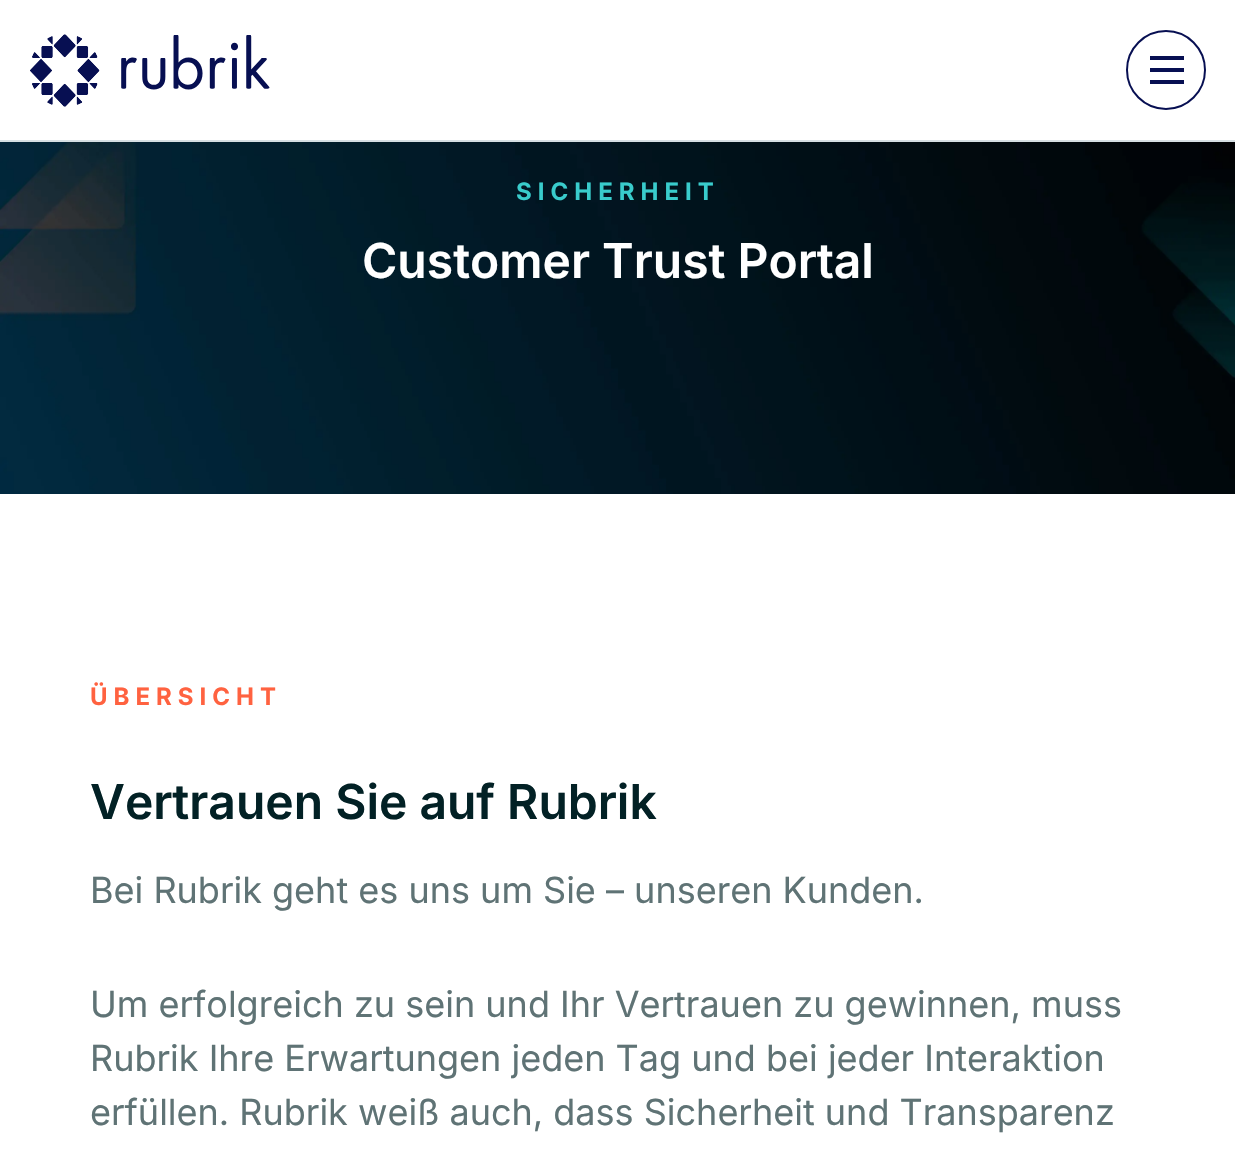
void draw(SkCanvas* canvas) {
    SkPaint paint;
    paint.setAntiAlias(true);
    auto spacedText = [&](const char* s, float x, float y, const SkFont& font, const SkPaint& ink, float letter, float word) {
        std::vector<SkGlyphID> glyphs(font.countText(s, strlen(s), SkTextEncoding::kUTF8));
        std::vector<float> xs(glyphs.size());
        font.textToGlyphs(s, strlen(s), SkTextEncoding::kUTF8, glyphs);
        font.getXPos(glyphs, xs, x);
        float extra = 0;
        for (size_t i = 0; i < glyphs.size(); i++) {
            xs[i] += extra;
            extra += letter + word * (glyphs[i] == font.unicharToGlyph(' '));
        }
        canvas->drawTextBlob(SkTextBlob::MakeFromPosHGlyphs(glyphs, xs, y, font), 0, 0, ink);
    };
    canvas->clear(0xFFFFFFFF);
    paint.setColor(0xFFD6DFE3);
    canvas->drawRect(SkRect::MakeXYWH(0, 140, 1235, 2), paint);
    canvas->drawImageRect(SkImages::DeferredFromEncodedData(SkData::MakeFromFileName("img1.png")), SkRect::MakeXYWH(30, 34, 240, 73), SkSamplingOptions());
    paint.setStyle(SkPaint::kStroke_Style);
    paint.setStrokeWidth(2);
    paint.setColor(0xFF070F52);
    canvas->drawCircle(1166, 70, 39, paint);
    paint.setStyle(SkPaint::kFill_Style);
    canvas->drawRect(SkRect::MakeXYWH(1150, 68, 34, 4), paint);
    canvas->drawRect(SkRect::MakeXYWH(1150, 56, 34, 4), paint);
    canvas->drawRect(SkRect::MakeXYWH(1150, 80, 34, 4), paint);
    canvas->drawImageRect(SkImages::DeferredFromEncodedData(SkData::MakeFromFileName("img2.png")), SkRect::MakeXYWH(0, 142, 1235, 352), SkSamplingOptions());
    SkFont font1(fontMgr->matchFamilyStyle("Inter", SkFontStyle::Bold()), 24);
    font1.setSubpixel(true);
    paint.setColor(0xFF39CCCC);
    spacedText("SICHERHEIT", 516, 200, font1, paint, 6, 0);
    SkFont font2(fontMgr->matchFamilyStyle("Inter", SkFontStyle(600, SkFontStyle::kNormal_Width, SkFontStyle::kUpright_Slant)), 48);
    font2.setSubpixel(true);
    paint.setColor(0xFFFFFFFF);
    canvas->drawString("Customer Trust Portal", 362, 278, font2, paint);
    paint.setColor(0xFFFF6240);
    spacedText("ÜBERSICHT", 90, 705, font1, paint, 6, 0);
    paint.setColor(0xFF022125);
    canvas->drawString("Vertrauen Sie auf Rubrik", 90, 819, font2, paint);
    SkFont font3(fontMgr->matchFamilyStyle("Inter", SkFontStyle::Normal()), 36);
    font3.setSubpixel(true);
    paint.setColor(0xFF5F7375);
    canvas->drawString("Bei Rubrik geht es uns um Sie – unseren Kunden.", 90, 903, font3, paint);
    canvas->drawString("Um erfolgreich zu sein und Ihr Vertrauen zu gewinnen, muss", 90, 1017, font3, paint);
    canvas->drawString("Rubrik Ihre Erwartungen jeden Tag und bei jeder Interaktion", 90, 1071, font3, paint);
    canvas->drawString("erfüllen. Rubrik weiß auch, dass Sicherheit und Transparenz", 90, 1125, font3, paint);
}
